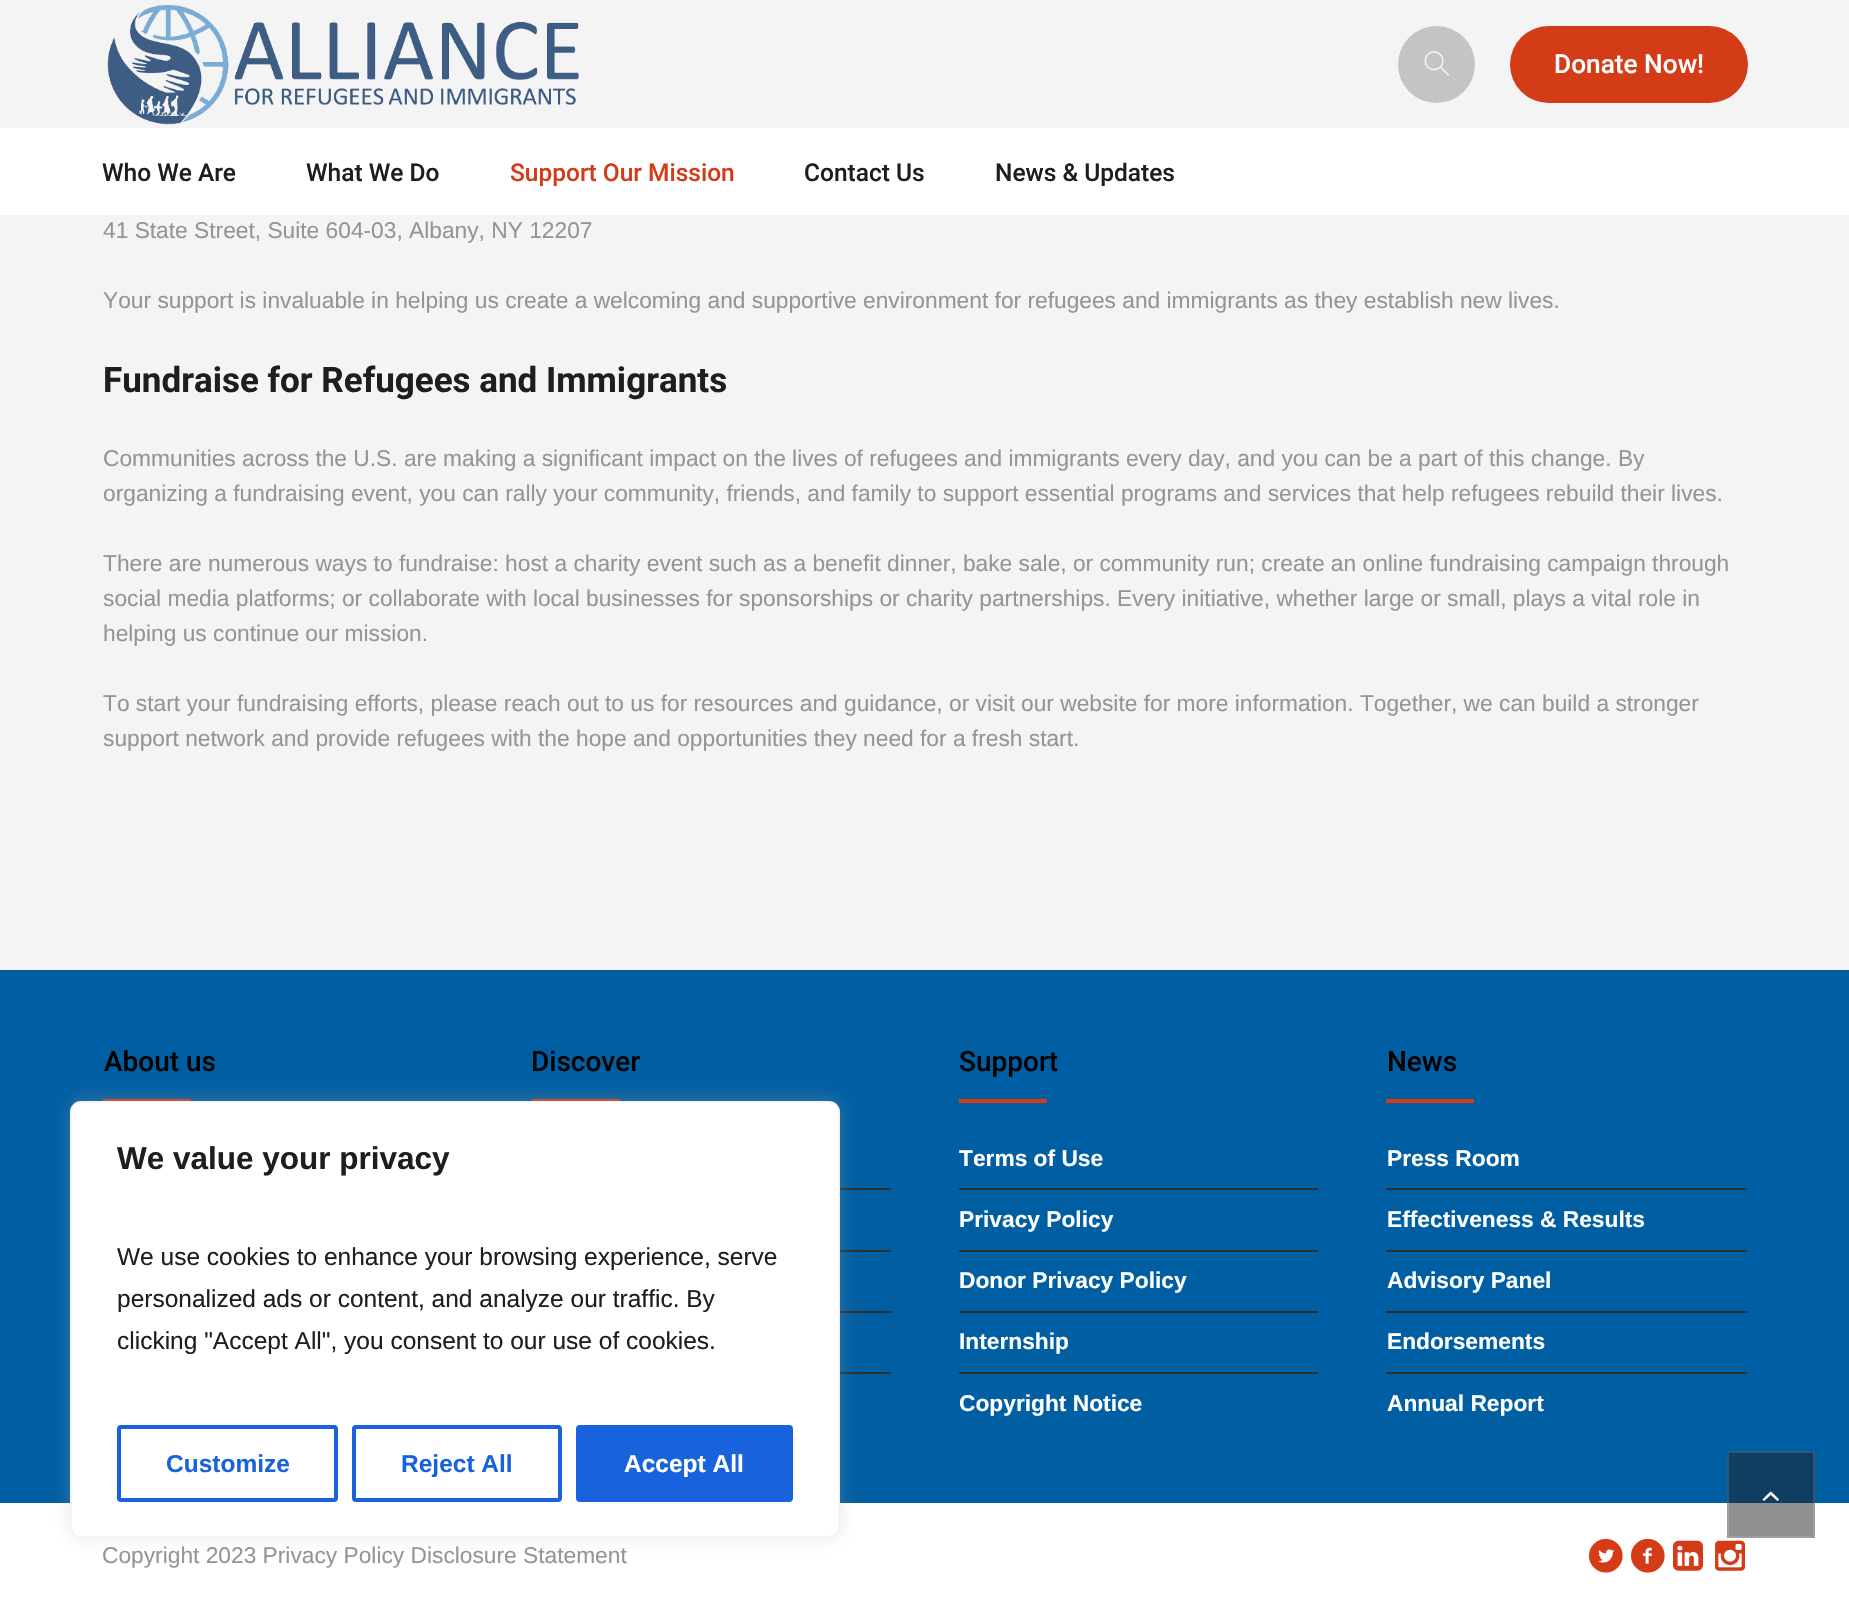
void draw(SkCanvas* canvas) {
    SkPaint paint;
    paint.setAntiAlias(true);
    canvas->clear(0xFFF4F4F4);
    canvas->drawImageRect(SkImages::DeferredFromEncodedData(SkData::MakeFromFileName("img1.png")), SkRect::MakeXYWH(107, 5, 472, 120), SkSamplingOptions());
    paint.setColor(0xFFC4C4C4);
    canvas->drawCircle(1436.5f, 64.5f, 38.5f, paint);
    canvas->drawImageRect(SkImages::DeferredFromEncodedData(SkData::MakeFromFileName("img2.png")), SkRect::MakeXYWH(1424, 51, 25, 25), SkSamplingOptions());
    paint.setColor(0xFFD43C18);
    canvas->drawRoundRect(SkRect::MakeXYWH(1510, 26, 238, 77), 38.5f, 38.5f, paint);
    SkFont font1(fontMgr->matchFamilyStyle("Roboto", SkFontStyle(500, SkFontStyle::kNormal_Width, SkFontStyle::kUpright_Slant)), 26.25f);
    font1.setSubpixel(true);
    paint.setColor(0xFFFFFFFF);
    canvas->drawString("Donate Now!", 1554, 73, font1, paint);
    canvas->drawRect(SkRect::MakeXYWH(0, 128, 1849, 87), paint);
    SkFont font2(fontMgr->matchFamilyStyle("Roboto", SkFontStyle(500, SkFontStyle::kNormal_Width, SkFontStyle::kUpright_Slant)), 24.5f);
    font2.setSubpixel(true);
    paint.setColor(0xFF1E1E1E);
    canvas->drawString("Who We Are", 102, 181, font2, paint);
    canvas->drawString("What We Do", 306, 181, font2, paint);
    paint.setColor(0xFFD43C18);
    canvas->drawString("Support Our Mission", 510, 181, font2, paint);
    paint.setColor(0xFF1E1E1E);
    canvas->drawString("Contact Us", 804, 181, font2, paint);
    canvas->drawString("News & Updates", 995, 181, font2, paint);
    SkFont font3(fontMgr->matchFamilyStyle("Liberation Sans", SkFontStyle::Normal()), 22.75f);
    font3.setSubpixel(true);
    paint.setColor(0xFF959595);
    canvas->drawString("41 State Street, Suite 604-03, Albany, NY 12207", 103, 238, font3, paint);
    canvas->drawString("Your support is invaluable in helping us create a welcoming and supportive environment for refugees and immigrants as they establish new lives.", 103, 308, font3, paint);
    SkFont font4(fontMgr->matchFamilyStyle("Roboto", SkFontStyle::Bold()), 35);
    font4.setSubpixel(true);
    paint.setColor(0xFF1E1E1E);
    canvas->drawString("Fundraise for Refugees and Immigrants", 103, 392, font4, paint);
    paint.setColor(0xFF959595);
    canvas->drawString("Communities across the U.S. are making a significant impact on the lives of refugees and immigrants every day, and you can be a part of this change. By", 103, 466, font3, paint);
    canvas->drawString("organizing a fundraising event, you can rally your community, friends, and family to support essential programs and services that help refugees rebuild their lives.", 103, 501, font3, paint);
    canvas->drawString("There are numerous ways to fundraise: host a charity event such as a benefit dinner, bake sale, or community run; create an online fundraising campaign through", 103, 571, font3, paint);
    canvas->drawString("social media platforms; or collaborate with local businesses for sponsorships or charity partnerships. Every initiative, whether large or small, plays a vital role in", 103, 606, font3, paint);
    canvas->drawString("helping us continue our mission.", 103, 641, font3, paint);
    canvas->drawString("To start your fundraising efforts, please reach out to us for resources and guidance, or visit our website for more information. Together, we can build a stronger", 103, 711, font3, paint);
    canvas->drawString("support network and provide refugees with the hope and opportunities they need for a fresh start.", 103, 746, font3, paint);
    paint.setColor(0xFF005EA2);
    canvas->drawRect(SkRect::MakeXYWH(0, 970, 1849, 533), paint);
    paint.setColor(0xFF0F3E60);
    canvas->drawRect(SkRect::MakeXYWH(1727, 1451, 88, 52), paint);
    SkFont font5(fontMgr->matchFamilyStyle("Roboto", SkFontStyle(500, SkFontStyle::kNormal_Width, SkFontStyle::kUpright_Slant)), 28);
    font5.setSubpixel(true);
    paint.setColor(0xFF000000);
    canvas->drawString("About us", 104, 1071, font5, paint);
    paint.setColor(0xFFD43C18);
    canvas->drawRect(SkRect::MakeXYWH(103, 1099, 88, 2), paint);
    paint.setColor(0xFF000000);
    canvas->drawString("Discover", 531, 1071, font5, paint);
    paint.setColor(0xFFD43C18);
    canvas->drawRect(SkRect::MakeXYWH(532, 1099, 88, 2), paint);
    paint.setColor(0xFF2E2E2E);
    canvas->drawRect(SkRect::MakeXYWH(840, 1188, 51, 2), paint);
    canvas->drawRect(SkRect::MakeXYWH(840, 1250, 51, 2), paint);
    canvas->drawRect(SkRect::MakeXYWH(840, 1311, 51, 2), paint);
    canvas->drawRect(SkRect::MakeXYWH(840, 1372, 51, 2), paint);
    paint.setColor(0xFF000000);
    canvas->drawString("Support", 959, 1071, font5, paint);
    paint.setColor(0xFFD43C18);
    canvas->drawRect(SkRect::MakeXYWH(959, 1099, 88, 4), paint);
    SkFont font6(fontMgr->matchFamilyStyle("Liberation Sans", SkFontStyle::Bold()), 22.75f);
    font6.setSubpixel(true);
    paint.setColor(0xFFFFFFFF);
    canvas->drawString("Terms of Use", 959, 1166, font6, paint);
    paint.setColor(0xFF2E2E2E);
    canvas->drawRect(SkRect::MakeXYWH(959, 1188, 359, 2), paint);
    paint.setColor(0xFFFFFFFF);
    canvas->drawString("Privacy Policy", 959, 1227, font6, paint);
    paint.setColor(0xFF2E2E2E);
    canvas->drawRect(SkRect::MakeXYWH(959, 1250, 359, 2), paint);
    paint.setColor(0xFFFFFFFF);
    canvas->drawString("Donor Privacy Policy", 959, 1288, font6, paint);
    paint.setColor(0xFF2E2E2E);
    canvas->drawRect(SkRect::MakeXYWH(959, 1311, 359, 2), paint);
    paint.setColor(0xFFFFFFFF);
    canvas->drawString("Internship", 959, 1349, font6, paint);
    paint.setColor(0xFF2E2E2E);
    canvas->drawRect(SkRect::MakeXYWH(959, 1372, 359, 2), paint);
    paint.setColor(0xFFFFFFFF);
    canvas->drawString("Copyright Notice", 959, 1411, font6, paint);
    paint.setColor(0xFF000000);
    canvas->drawString("News", 1387, 1071, font5, paint);
    paint.setColor(0xFFD43C18);
    canvas->drawRect(SkRect::MakeXYWH(1386, 1099, 88, 4), paint);
    paint.setColor(0xFFFFFFFF);
    canvas->drawString("Press Room", 1387, 1166, font6, paint);
    paint.setColor(0xFF2E2E2E);
    canvas->drawRect(SkRect::MakeXYWH(1386, 1188, 361, 2), paint);
    paint.setColor(0xFFFFFFFF);
    canvas->drawString("Effectiveness & Results", 1387, 1227, font6, paint);
    paint.setColor(0xFF2E2E2E);
    canvas->drawRect(SkRect::MakeXYWH(1386, 1250, 361, 2), paint);
    paint.setColor(0xFFFFFFFF);
    canvas->drawString("Advisory Panel", 1387, 1288, font6, paint);
    paint.setColor(0xFF2E2E2E);
    canvas->drawRect(SkRect::MakeXYWH(1386, 1311, 361, 2), paint);
    paint.setColor(0xFFFFFFFF);
    canvas->drawString("Endorsements", 1387, 1349, font6, paint);
    paint.setColor(0xFF2E2E2E);
    canvas->drawRect(SkRect::MakeXYWH(1386, 1372, 361, 2), paint);
    paint.setColor(0xFFFFFFFF);
    canvas->drawString("Annual Report", 1387, 1411, font6, paint);
    canvas->drawRect(SkRect::MakeXYWH(0, 1503, 1849, 105), paint);
    paint.setColor(0xFF8F8F8F);
    canvas->drawRect(SkRect::MakeXYWH(1727, 1503, 88, 35), paint);
    paint.setStyle(SkPaint::kStroke_Style);
    paint.setStrokeWidth(2);
    paint.setColor(0x26F4F4F4);
    canvas->drawRect(SkRect::MakeXYWH(1728, 1452, 86, 85), paint);
    canvas->drawImageRect(SkImages::DeferredFromEncodedData(SkData::MakeFromFileName("img3.png")), SkRect::MakeXYWH(1762, 1491, 17, 10), SkSamplingOptions());
    paint.setStyle(SkPaint::kFill_Style);
    paint.setColor(0xFF959595);
    canvas->drawString("Copyright 2023 Privacy Policy Disclosure Statement", 102, 1563, font3, paint);
    canvas->drawImageRect(SkImages::DeferredFromEncodedData(SkData::MakeFromFileName("img4.png")), SkRect::MakeXYWH(1589, 1538, 34, 35), SkSamplingOptions());
    canvas->drawImageRect(SkImages::DeferredFromEncodedData(SkData::MakeFromFileName("img5.png")), SkRect::MakeXYWH(1631, 1538, 34, 35), SkSamplingOptions());
    canvas->drawImageRect(SkImages::DeferredFromEncodedData(SkData::MakeFromFileName("img6.png")), SkRect::MakeXYWH(1673, 1540, 30, 31), SkSamplingOptions());
    canvas->drawImageRect(SkImages::DeferredFromEncodedData(SkData::MakeFromFileName("img7.png")), SkRect::MakeXYWH(1715, 1540, 31, 31), SkSamplingOptions());
    paint.setColor(0x4DACABAB);
    paint.setMaskFilter(SkMaskFilter::MakeBlur(kNormal_SkBlurStyle, 9));
    canvas->drawRoundRect(SkRect::MakeXYWH(70, 1099, 770, 438), 11, 11, paint);
    paint.setMaskFilter(nullptr);
    paint.setColor(0xFFFFFFFF);
    canvas->drawRoundRect(SkRect::MakeXYWH(71, 1102, 768, 435), 10, 10, paint);
    paint.setStyle(SkPaint::kStroke_Style);
    paint.setColor(0xFFF4F4F4);
    canvas->drawRoundRect(SkRect::MakeXYWH(71, 1102, 768, 435), 10, 10, paint);
    SkFont font7(fontMgr->matchFamilyStyle("Liberation Sans", SkFontStyle::Bold()), 31.5f);
    font7.setSubpixel(true);
    paint.setStyle(SkPaint::kFill_Style);
    paint.setColor(0xFF1E1E1E);
    canvas->drawString("We value your privacy", 117, 1169, font7, paint);
    SkFont font8(fontMgr->matchFamilyStyle("Liberation Sans", SkFontStyle::Normal()), 24.5f);
    font8.setSubpixel(true);
    canvas->drawString("We use cookies to enhance your browsing experience, serve", 117, 1265, font8, paint);
    canvas->drawString("personalized ads or content, and analyze our traffic. By", 117, 1307, font8, paint);
    canvas->drawString("clicking \"Accept All\", you consent to our use of cookies.", 117, 1349, font8, paint);
    paint.setStyle(SkPaint::kStroke_Style);
    paint.setStrokeWidth(4);
    paint.setColor(0xFF1863DC);
    canvas->drawRoundRect(SkRect::MakeXYWH(119, 1427, 217, 73), 2, 2, paint);
    SkFont font9(fontMgr->matchFamilyStyle("Liberation Sans", SkFontStyle::Bold()), 24.5f);
    font9.setSubpixel(true);
    paint.setStyle(SkPaint::kFill_Style);
    canvas->drawString("Customize", 166, 1472, font9, paint);
    paint.setStyle(SkPaint::kStroke_Style);
    canvas->drawRoundRect(SkRect::MakeXYWH(354, 1427, 206, 73), 2, 2, paint);
    paint.setStyle(SkPaint::kFill_Style);
    canvas->drawString("Reject All", 401, 1472, font9, paint);
    canvas->drawRoundRect(SkRect::MakeXYWH(578, 1427, 213, 73), 2, 2, paint);
    paint.setStyle(SkPaint::kStroke_Style);
    canvas->drawRoundRect(SkRect::MakeXYWH(578, 1427, 213, 73), 2, 2, paint);
    paint.setStyle(SkPaint::kFill_Style);
    paint.setColor(0xFFFFFFFF);
    canvas->drawString("Accept All", 624, 1472, font9, paint);
}
